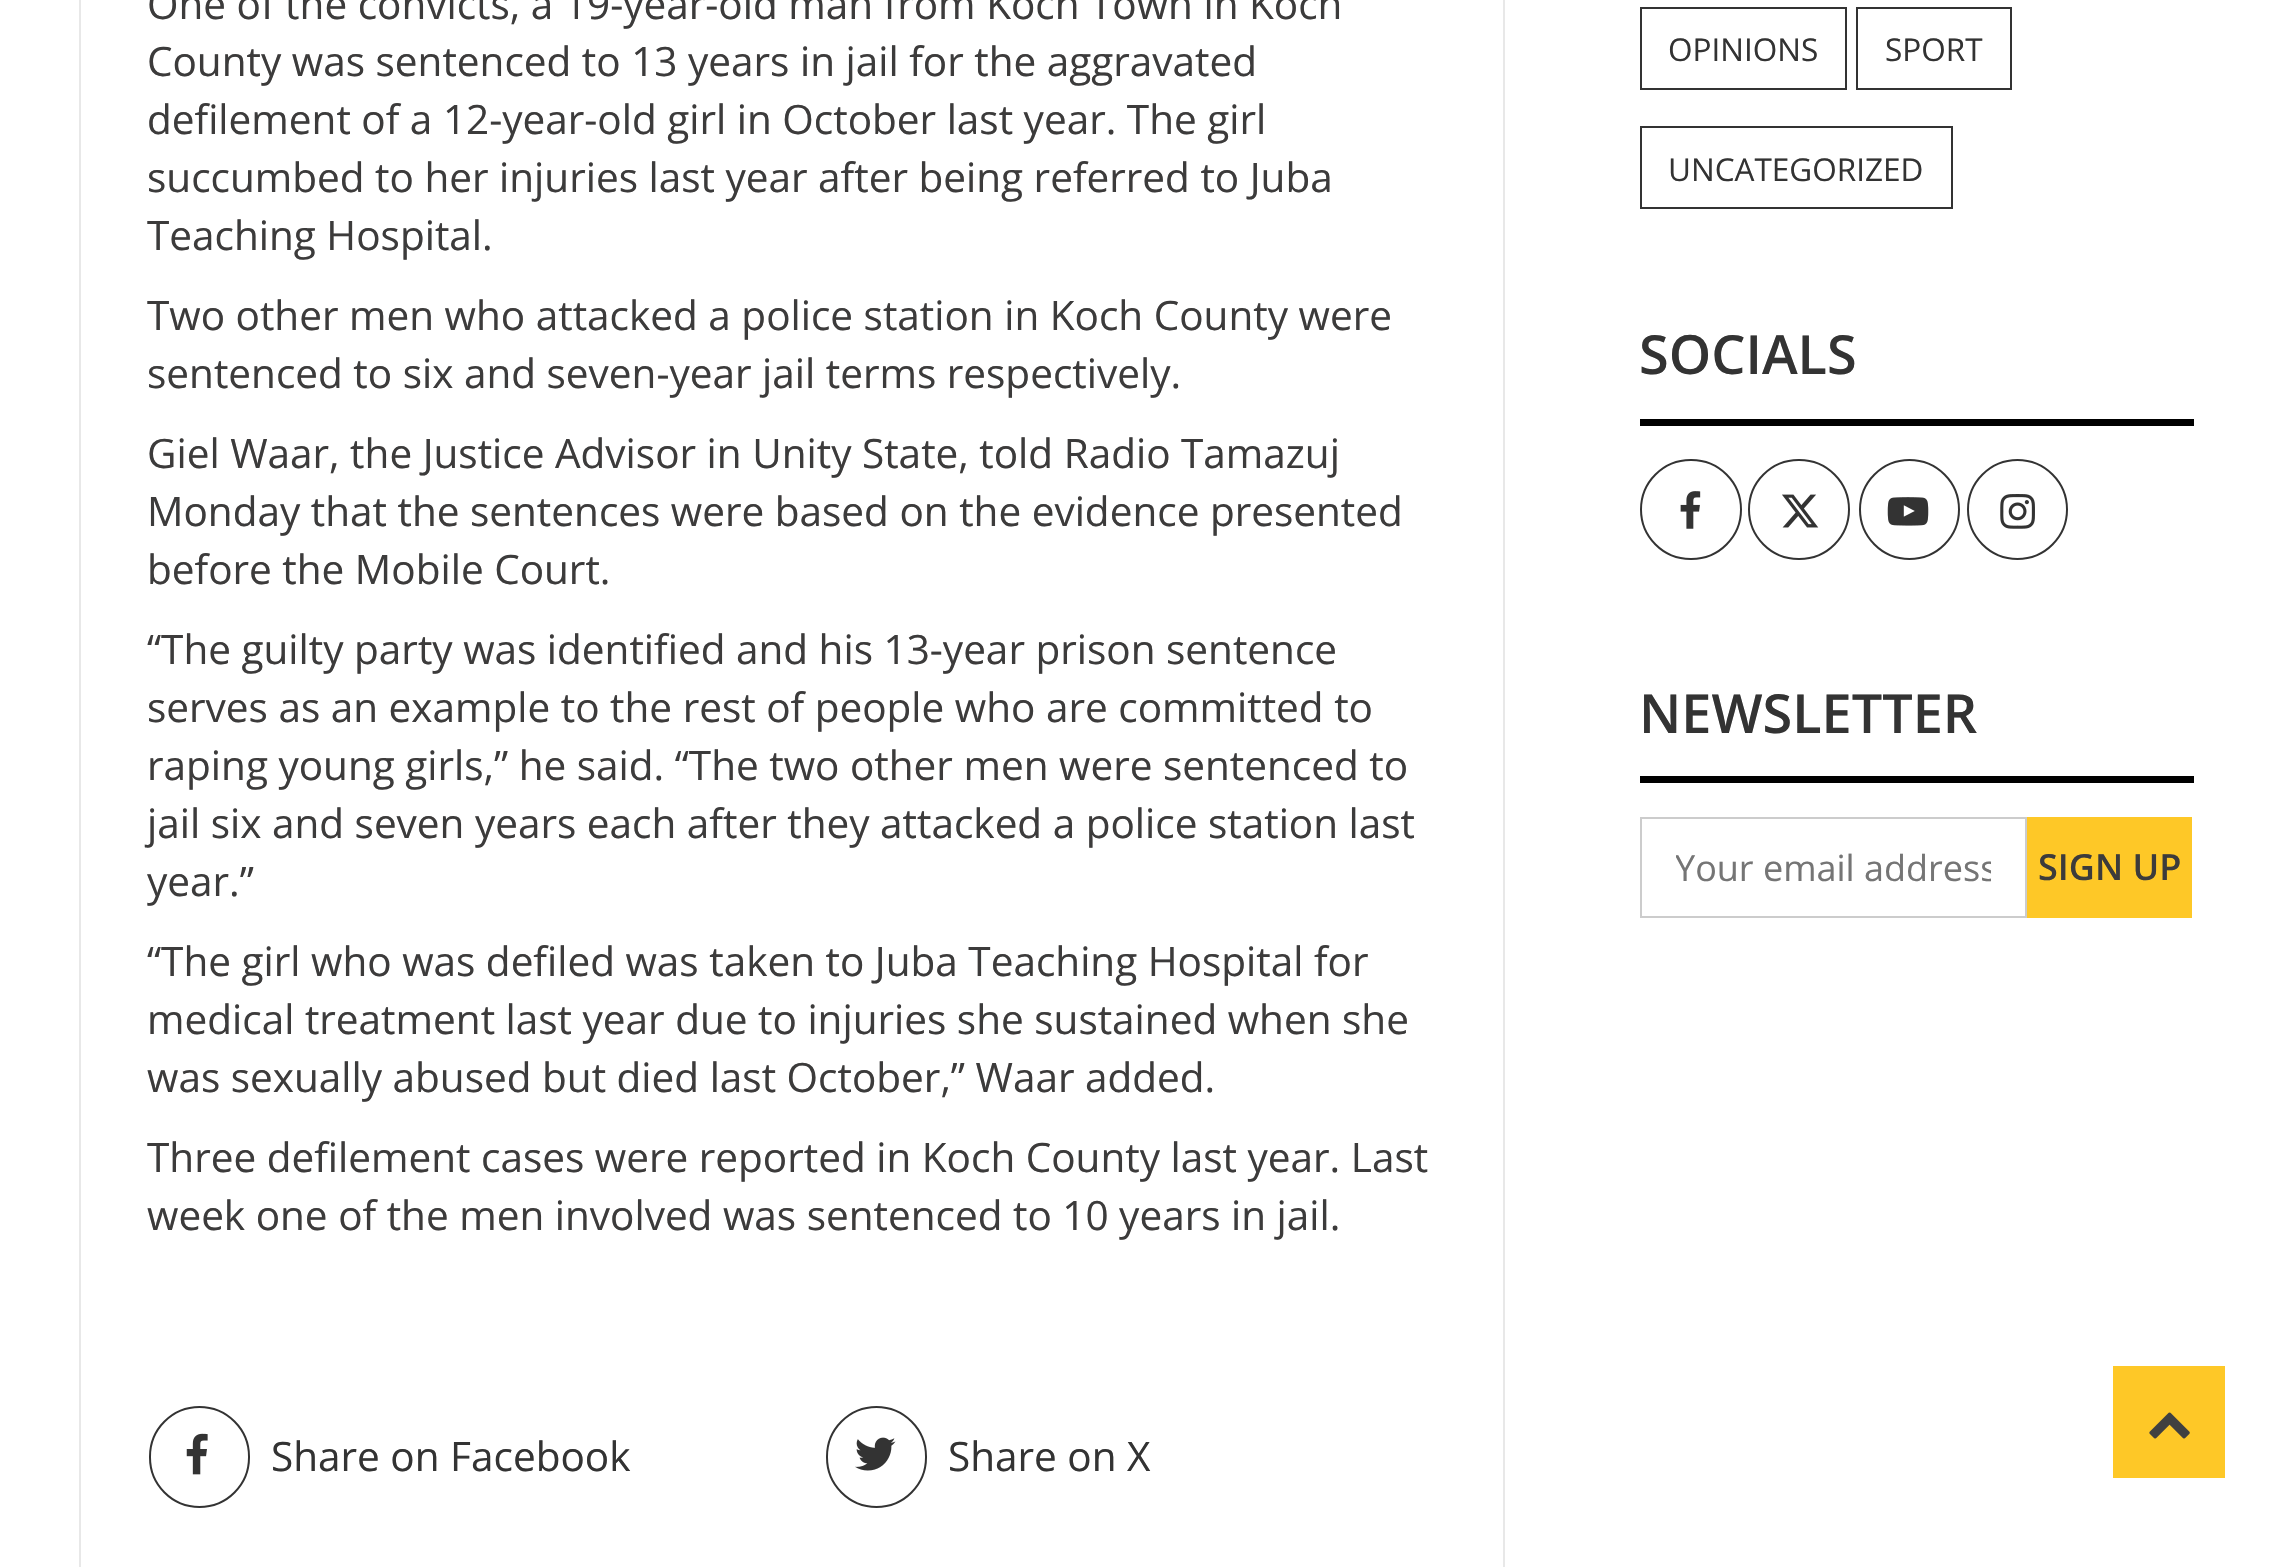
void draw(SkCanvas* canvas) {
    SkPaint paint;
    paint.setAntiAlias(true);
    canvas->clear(0xFFFFFFFF);
    paint.setColor(0xFFE8E8E8);
    canvas->drawRect(SkRect::MakeXYWH(1503, 0, 2, 1567), paint);
    canvas->drawRect(SkRect::MakeXYWH(79, 0, 2, 1567), paint);
    SkFont font1(fontMgr->matchFamilyStyle("Open Sans", SkFontStyle::Normal()), 40.5f);
    font1.setSubpixel(true);
    paint.setColor(0xFF3C3B3B);
    canvas->drawString("One of the convicts, a 19-year-old man from Koch Town in Koch", 147, 19, font1, paint);
    canvas->drawString("County was sentenced to 13 years in jail for the aggravated", 147, 76, font1, paint);
    canvas->drawString("defilement of a 12-year-old girl in October last year. The girl", 147, 134, font1, paint);
    canvas->drawString("succumbed to her injuries last year after being referred to Juba", 147, 192, font1, paint);
    canvas->drawString("Teaching Hospital.", 147, 250, font1, paint);
    canvas->drawString("Two other men who attacked a police station in Koch County were", 147, 330, font1, paint);
    canvas->drawString("sentenced to six and seven-year jail terms respectively.", 147, 388, font1, paint);
    canvas->drawString("Giel Waar, the Justice Advisor in Unity State, told Radio Tamazuj", 147, 468, font1, paint);
    canvas->drawString("Monday that the sentences were based on the evidence presented", 147, 526, font1, paint);
    canvas->drawString("before the Mobile Court.", 147, 584, font1, paint);
    canvas->drawString("“The guilty party was identified and his 13-year prison sentence", 147, 664, font1, paint);
    canvas->drawString("serves as an example to the rest of people who are committed to", 147, 722, font1, paint);
    canvas->drawString("raping young girls,” he said. “The two other men were sentenced to", 147, 780, font1, paint);
    canvas->drawString("jail six and seven years each after they attacked a police station last", 147, 838, font1, paint);
    canvas->drawString("year.”", 147, 896, font1, paint);
    canvas->drawString("“The girl who was defiled was taken to Juba Teaching Hospital for", 147, 976, font1, paint);
    canvas->drawString("medical treatment last year due to injuries she sustained when she", 147, 1034, font1, paint);
    canvas->drawString("was sexually abused but died last October,” Waar added.", 147, 1092, font1, paint);
    canvas->drawString("Three defilement cases were reported in Koch County last year. Last", 147, 1172, font1, paint);
    canvas->drawString("week one of the men involved was sentenced to 10 years in jail.", 147, 1230, font1, paint);
    paint.setStyle(SkPaint::kStroke_Style);
    paint.setStrokeWidth(2);
    paint.setColor(0xFF333333);
    canvas->drawRoundRect(SkRect::MakeXYWH(150, 1407, 99, 100), 49.5f, 49.5f, paint);
    canvas->drawImageRect(SkImages::DeferredFromEncodedData(SkData::MakeFromFileName("img1.png")), SkRect::MakeXYWH(186, 1433, 22, 42), SkSamplingOptions());
    paint.setStyle(SkPaint::kFill_Style);
    canvas->drawString("Share on Facebook", 271, 1471, font1, paint);
    paint.setStyle(SkPaint::kStroke_Style);
    canvas->drawRoundRect(SkRect::MakeXYWH(827, 1407, 99, 100), 49.5f, 49.5f, paint);
    canvas->drawImageRect(SkImages::DeferredFromEncodedData(SkData::MakeFromFileName("img2.png")), SkRect::MakeXYWH(855, 1437, 41, 34), SkSamplingOptions());
    paint.setStyle(SkPaint::kFill_Style);
    canvas->drawString("Share on X", 948, 1471, font1, paint);
    paint.setStyle(SkPaint::kStroke_Style);
    canvas->drawRect(SkRect::MakeXYWH(1641, 8, 205, 81), paint);
    SkFont font2(fontMgr->matchFamilyStyle("Open Sans", SkFontStyle::Normal()), 31.5f);
    font2.setSubpixel(true);
    paint.setStyle(SkPaint::kFill_Style);
    canvas->drawString("OPINIONS", 1668, 61, font2, paint);
    paint.setStyle(SkPaint::kStroke_Style);
    canvas->drawRect(SkRect::MakeXYWH(1857, 8, 154, 81), paint);
    paint.setStyle(SkPaint::kFill_Style);
    canvas->drawString("SPORT", 1885, 61, font2, paint);
    paint.setStyle(SkPaint::kStroke_Style);
    canvas->drawRect(SkRect::MakeXYWH(1641, 127, 311, 81), paint);
    paint.setStyle(SkPaint::kFill_Style);
    canvas->drawString("UNCATEGORIZED", 1668, 181, font2, paint);
    paint.setColor(0xFF000000);
    canvas->drawRect(SkRect::MakeXYWH(1640, 419, 554, 7), paint);
    SkFont font3(fontMgr->matchFamilyStyle("Open Sans", SkFontStyle(600, SkFontStyle::kNormal_Width, SkFontStyle::kUpright_Slant)), 54);
    font3.setSubpixel(true);
    paint.setColor(0xFF333333);
    canvas->drawString("SOCIALS", 1639, 374, font3, paint);
    paint.setStyle(SkPaint::kStroke_Style);
    canvas->drawRoundRect(SkRect::MakeXYWH(1641, 460, 100, 99), 49.5f, 49.5f, paint);
    canvas->drawImageRect(SkImages::DeferredFromEncodedData(SkData::MakeFromFileName("img3.png")), SkRect::MakeXYWH(1680, 491, 21, 38), SkSamplingOptions());
    canvas->drawRoundRect(SkRect::MakeXYWH(1749, 460, 100, 99), 49.5f, 49.5f, paint);
    canvas->drawImageRect(SkImages::DeferredFromEncodedData(SkData::MakeFromFileName("img4.png")), SkRect::MakeXYWH(1782, 494, 37, 34), SkSamplingOptions());
    canvas->drawCircle(1909.5f, 509.5f, 49.5f, paint);
    canvas->drawImageRect(SkImages::DeferredFromEncodedData(SkData::MakeFromFileName("img5.png")), SkRect::MakeXYWH(1887, 497, 42, 29), SkSamplingOptions());
    canvas->drawCircle(2017.5f, 509.5f, 49.5f, paint);
    canvas->drawImageRect(SkImages::DeferredFromEncodedData(SkData::MakeFromFileName("img6.png")), SkRect::MakeXYWH(2000, 494, 35, 35), SkSamplingOptions());
    paint.setStyle(SkPaint::kFill_Style);
    paint.setColor(0xFF000000);
    canvas->drawRect(SkRect::MakeXYWH(1640, 776, 554, 7), paint);
    paint.setColor(0xFF333333);
    canvas->drawString("NEWSLETTER", 1639, 733, font3, paint);
    paint.setStyle(SkPaint::kStroke_Style);
    paint.setColor(0xFFCCCCCC);
    canvas->drawRect(SkRect::MakeXYWH(1641, 818, 385, 99), paint);
    canvas->save();
    canvas->clipRect(SkRect::MakeXYWH(1676, 844, 315, 49));
    SkFont font4(fontMgr->matchFamilyStyle("Open Sans", SkFontStyle::Normal()), 36);
    font4.setSubpixel(true);
    paint.setStyle(SkPaint::kFill_Style);
    paint.setColor(0xFF757575);
    canvas->drawString("Your email address", 1675, 881, font4, paint);
    canvas->restore();
    paint.setColor(0xFFFEC827);
    canvas->drawRect(SkRect::MakeXYWH(2027, 817, 165, 101), paint);
    SkFont font5(fontMgr->matchFamilyStyle("Open Sans", SkFontStyle(600, SkFontStyle::kNormal_Width, SkFontStyle::kUpright_Slant)), 36);
    font5.setSubpixel(true);
    paint.setColor(0xFF3C3B3B);
    canvas->drawString("SIGN UP", 2038, 880, font5, paint);
    paint.setColor(0xFFFEC827);
    canvas->drawRect(SkRect::MakeXYWH(2113, 1366, 112, 112), paint);
    canvas->drawImageRect(SkImages::DeferredFromEncodedData(SkData::MakeFromFileName("img7.png")), SkRect::MakeXYWH(2149, 1412, 41, 27), SkSamplingOptions());
}
